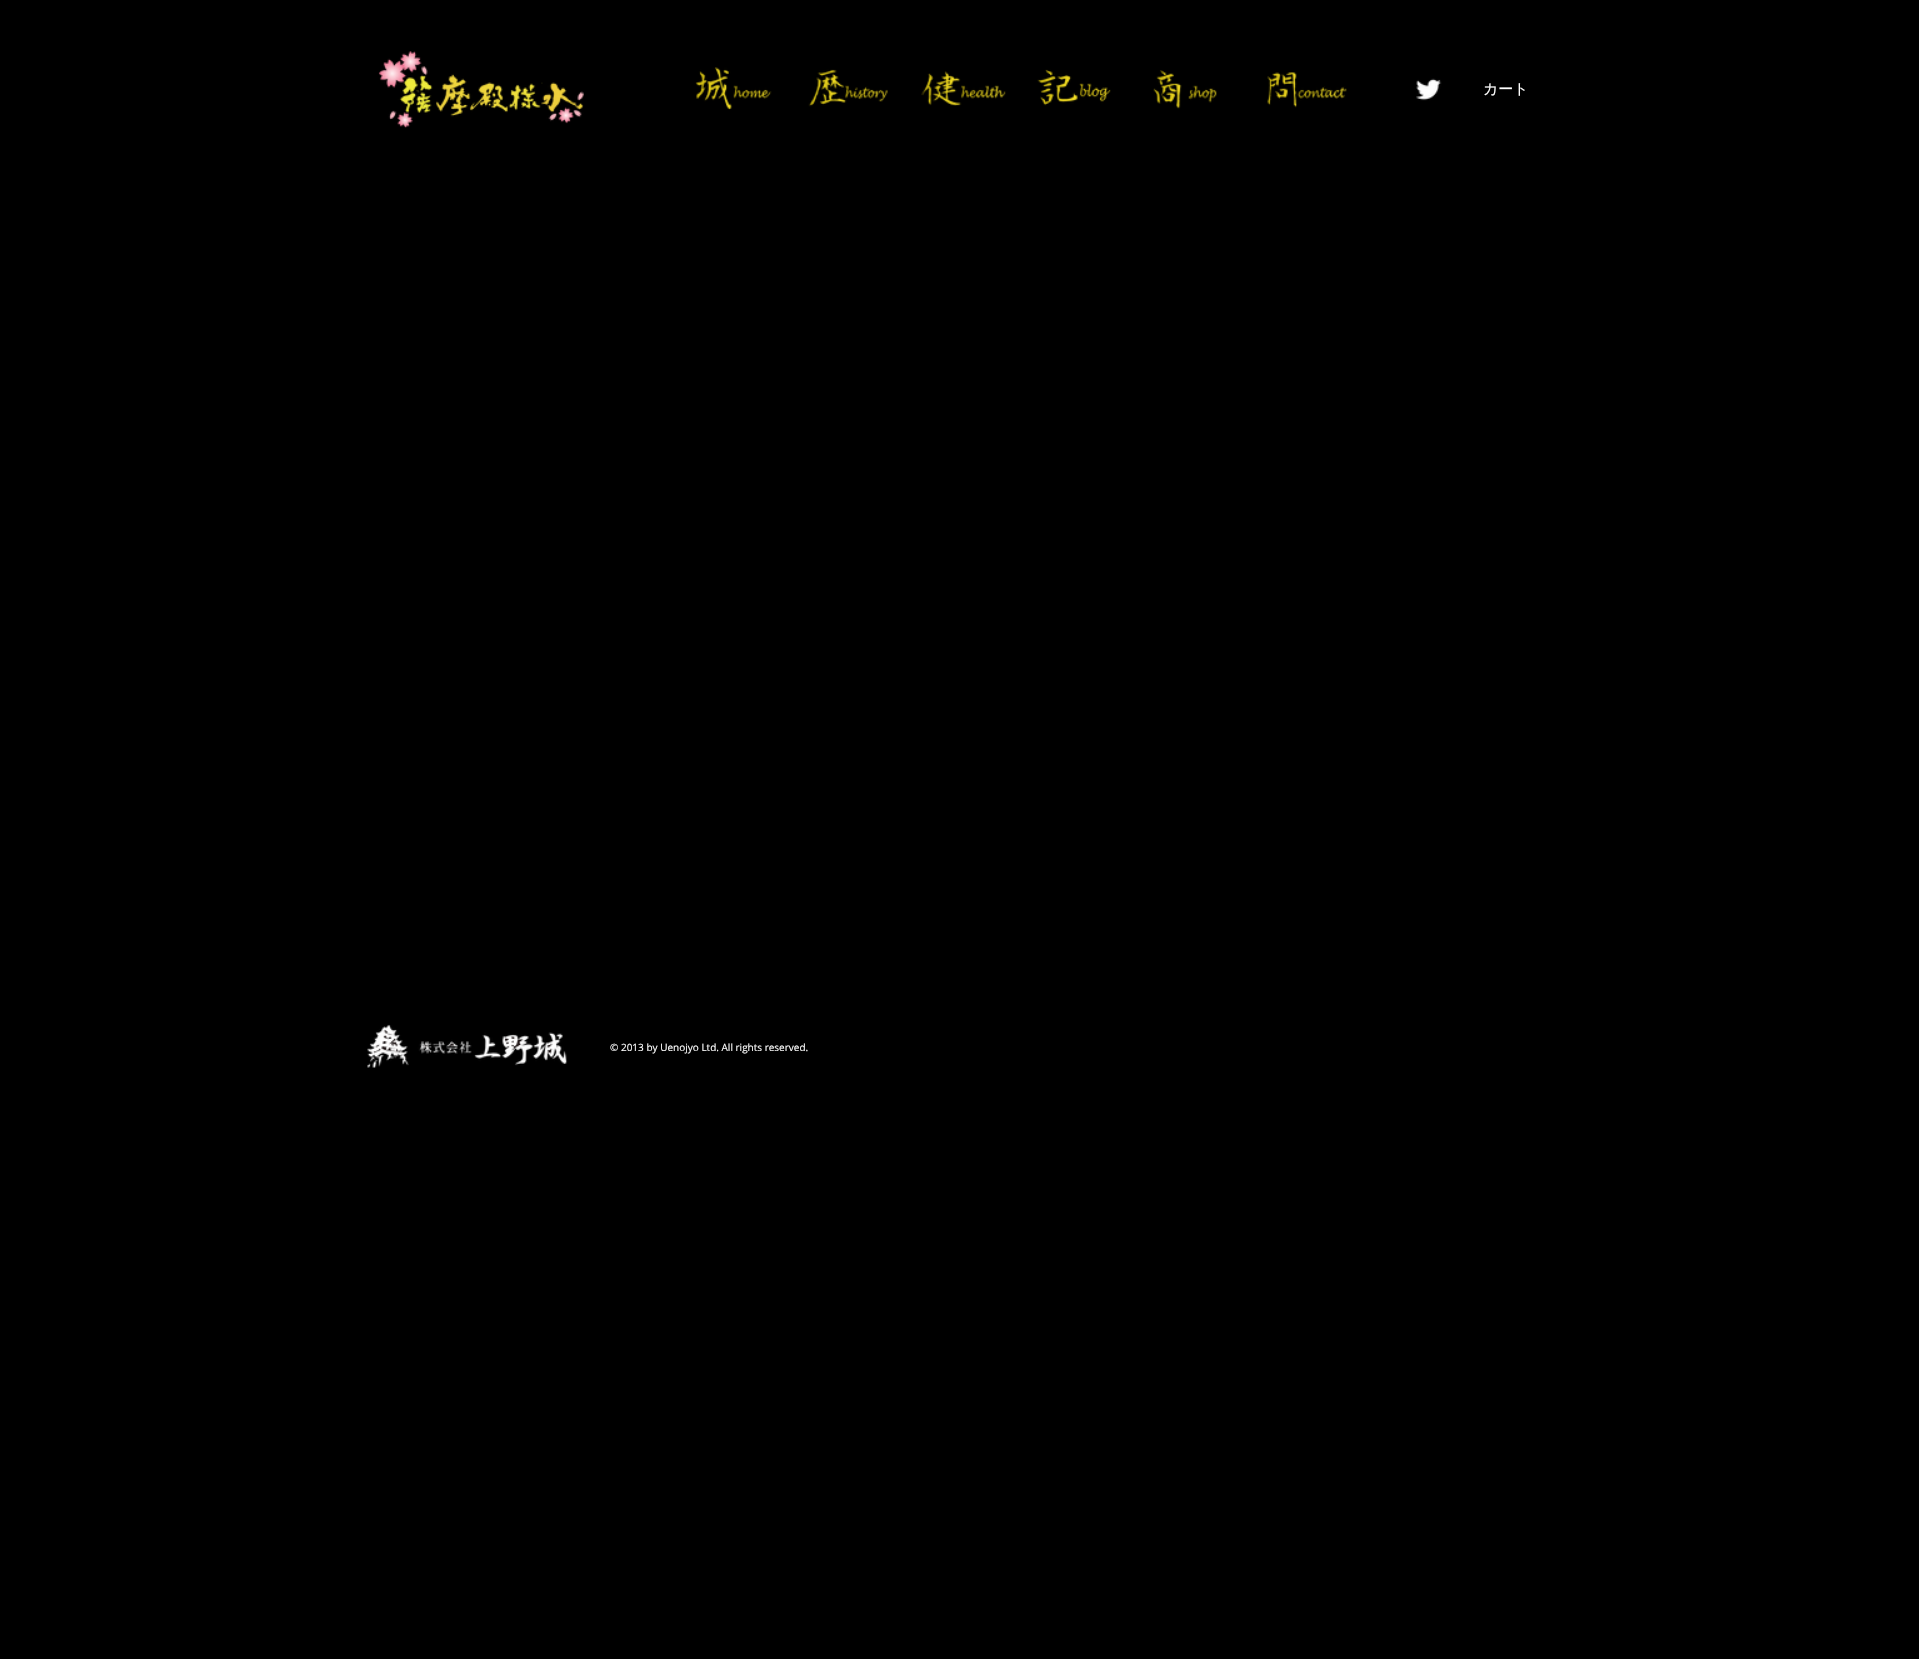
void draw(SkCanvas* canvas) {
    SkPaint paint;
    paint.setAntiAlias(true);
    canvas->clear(0xFF000000);
    canvas->drawImageRect(SkImages::DeferredFromEncodedData(SkData::MakeFromFileName("img1.png")), SkRect::MakeXYWH(378, 51, 206, 77), SkSamplingOptions());
    canvas->drawImageRect(SkImages::DeferredFromEncodedData(SkData::MakeFromFileName("img2.png")), SkRect::MakeXYWH(695, 67, 77, 43), SkSamplingOptions());
    canvas->drawImageRect(SkImages::DeferredFromEncodedData(SkData::MakeFromFileName("img3.png")), SkRect::MakeXYWH(808, 69, 80, 38), SkSamplingOptions());
    canvas->drawImageRect(SkImages::DeferredFromEncodedData(SkData::MakeFromFileName("img4.png")), SkRect::MakeXYWH(921, 71, 85, 35), SkSamplingOptions());
    canvas->drawImageRect(SkImages::DeferredFromEncodedData(SkData::MakeFromFileName("img5.png")), SkRect::MakeXYWH(1037, 69, 74, 37), SkSamplingOptions());
    canvas->drawImageRect(SkImages::DeferredFromEncodedData(SkData::MakeFromFileName("img6.png")), SkRect::MakeXYWH(1153, 70, 64, 39), SkSamplingOptions());
    canvas->drawImageRect(SkImages::DeferredFromEncodedData(SkData::MakeFromFileName("img7.png")), SkRect::MakeXYWH(1267, 72, 80, 36), SkSamplingOptions());
    canvas->drawImageRect(SkImages::DeferredFromEncodedData(SkData::MakeFromFileName("img8.png")), SkRect::MakeXYWH(1416, 78, 26, 23), SkSamplingOptions());
    SkFont font1(fontMgr->matchFamilyStyle("WenQuanYi Zen Hei", SkFontStyle(500, SkFontStyle::kNormal_Width, SkFontStyle::kUpright_Slant)), 15);
    font1.setSubpixel(true);
    paint.setColor(0xFFFFFFFF);
    canvas->drawString("カート", 1483, 94, font1, paint);
    canvas->drawImageRect(SkImages::DeferredFromEncodedData(SkData::MakeFromFileName("img9.png")), SkRect::MakeXYWH(367, 1024, 201, 44), SkSamplingOptions());
    SkFont font2(fontMgr->matchFamilyStyle("Open Sans", SkFontStyle::Normal()), 10);
    font2.setSubpixel(true);
    canvas->drawString("© 2013 by Uenojyo Ltd. All rights reserved.", 610, 1051, font2, paint);
}
